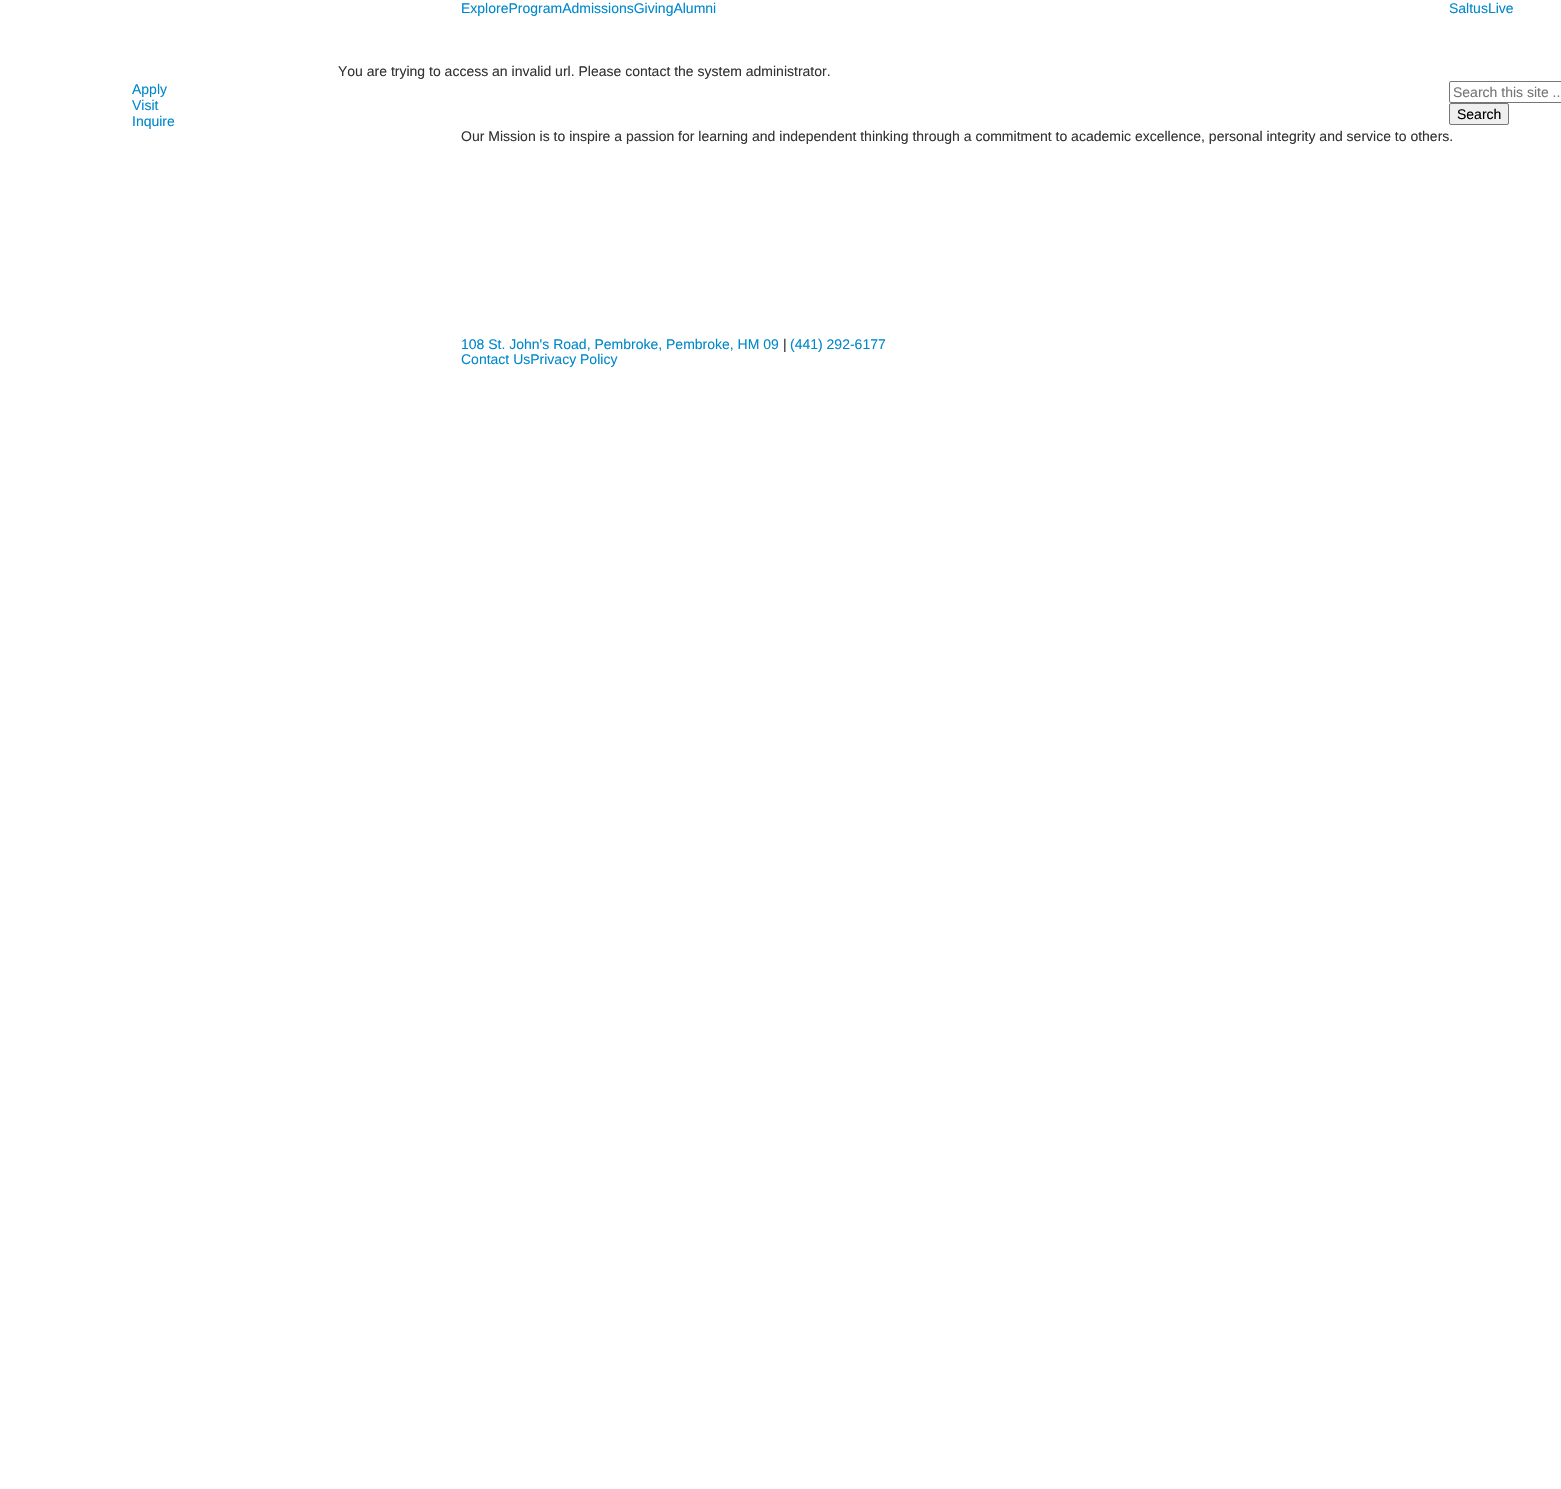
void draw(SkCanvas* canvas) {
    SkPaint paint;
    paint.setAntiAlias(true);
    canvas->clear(0xFFFFFFFF);
    SkFont font1(fontMgr->matchFamilyStyle("Liberation Sans", SkFontStyle::Normal()), 14);
    font1.setSubpixel(true);
    paint.setColor(0xFF0088CC);
    canvas->drawString("ExploreProgramAdmissionsGivingAlumni", 461, 13, font1, paint);
    canvas->drawString("SaltusLive", 1449, 13, font1, paint);
    paint.setColor(0xFF333333);
    canvas->drawString("You are trying to access an invalid url. Please contact the system administrator.", 338, 76, font1, paint);
    paint.setColor(0xFF0088CC);
    canvas->drawString("Apply", 132, 94, font1, paint);
    canvas->drawString("Visit", 132, 110, font1, paint);
    canvas->drawString("Inquire", 132, 126, font1, paint);
    paint.setStyle(SkPaint::kStroke_Style);
    paint.setStrokeWidth(1);
    paint.setColor(0xFF767676);
    canvas->drawRoundRect(SkRect::MakeXYWH(1449.5f, 81.5f, 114, 21), 1.5f, 1.5f, paint);
    paint.setStyle(SkPaint::kFill_Style);
    paint.setColor(0xFF757575);
    canvas->drawString("Search this site ..", 1453, 97, font1, paint);
    paint.setColor(0xFFEFEFEF);
    canvas->drawRoundRect(SkRect::MakeXYWH(1449.5f, 103.5f, 59, 21), 1.5f, 1.5f, paint);
    paint.setStyle(SkPaint::kStroke_Style);
    paint.setColor(0xFF767676);
    canvas->drawRoundRect(SkRect::MakeXYWH(1449.5f, 103.5f, 59, 21), 1.5f, 1.5f, paint);
    paint.setStyle(SkPaint::kFill_Style);
    paint.setColor(0xFF000000);
    canvas->drawString("Search", 1457, 119, font1, paint);
    paint.setColor(0xFF333333);
    canvas->drawString("Our Mission is to inspire a passion for learning and independent thinking through a commitment to academic excellence, personal integrity and service to others.", 461, 141, font1, paint);
    paint.setColor(0xFF0088CC);
    canvas->drawString("108 St. John's Road, Pembroke, Pembroke, HM 09", 461, 349, font1, paint);
    paint.setColor(0xFF333333);
    canvas->drawString("|", 783, 349, font1, paint);
    paint.setColor(0xFF0088CC);
    canvas->drawString("(441) 292-6177", 790, 349, font1, paint);
    canvas->drawString("Contact UsPrivacy Policy", 461, 364, font1, paint);
}
